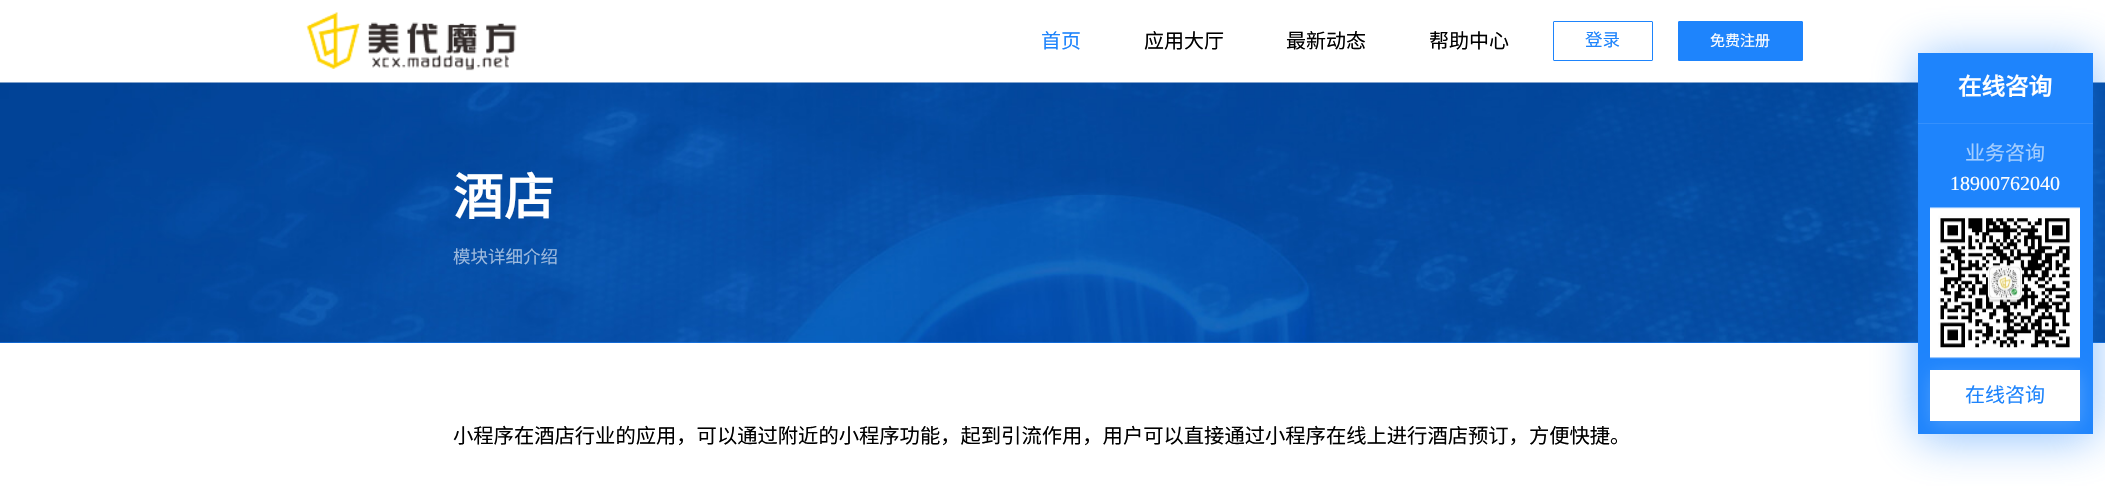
void draw(SkCanvas* canvas) {
    SkPaint paint;
    paint.setAntiAlias(true);
    auto spacedText = [&](const char* s, float x, float y, const SkFont& font, const SkPaint& ink, float letter, float word) {
        std::vector<SkGlyphID> glyphs(font.countText(s, strlen(s), SkTextEncoding::kUTF8));
        std::vector<float> xs(glyphs.size());
        font.textToGlyphs(s, strlen(s), SkTextEncoding::kUTF8, glyphs);
        font.getXPos(glyphs, xs, x);
        float extra = 0;
        for (size_t i = 0; i < glyphs.size(); i++) {
            xs[i] += extra;
            extra += letter + word * (glyphs[i] == font.unicharToGlyph(' '));
        }
        canvas->drawTextBlob(SkTextBlob::MakeFromPosHGlyphs(glyphs, xs, y, font), 0, 0, ink);
    };
    canvas->clear(0xFFFFFFFF);
    canvas->drawImageRect(SkImages::DeferredFromEncodedData(SkData::MakeFromFileName("img1.png")), SkRect::MakeXYWH(306, 12, 211, 59), SkSamplingOptions());
    SkFont font1(fontMgr->matchFamilyStyle("Noto Sans CJK SC", SkFontStyle::Normal()), 20);
    font1.setSubpixel(true);
    paint.setColor(0xFF1E84FC);
    canvas->drawString("首页", 1041, 48, font1, paint);
    paint.setColor(0xFF000000);
    canvas->drawString("应用大厅", 1144, 48, font1, paint);
    canvas->drawString("最新动态", 1286, 48, font1, paint);
    canvas->drawString("帮助中心", 1429, 48, font1, paint);
    paint.setStyle(SkPaint::kStroke_Style);
    paint.setStrokeWidth(1);
    paint.setColor(0xFF1E84FC);
    canvas->drawRoundRect(SkRect::MakeXYWH(1553.5f, 21.5f, 99, 39), 0.5f, 0.5f, paint);
    SkFont font2(fontMgr->matchFamilyStyle("Noto Sans CJK SC", SkFontStyle::Normal()), 17.5f);
    font2.setSubpixel(true);
    paint.setStyle(SkPaint::kFill_Style);
    canvas->drawString("登录", 1585, 46, font2, paint);
    canvas->drawRoundRect(SkRect::MakeXYWH(1678.5f, 21.5f, 124, 39), 0.5f, 0.5f, paint);
    paint.setStyle(SkPaint::kStroke_Style);
    canvas->drawRoundRect(SkRect::MakeXYWH(1678.5f, 21.5f, 124, 39), 0.5f, 0.5f, paint);
    SkFont font3(fontMgr->matchFamilyStyle("Noto Sans CJK SC", SkFontStyle::Normal()), 15);
    font3.setSubpixel(true);
    paint.setStyle(SkPaint::kFill_Style);
    paint.setColor(0xFFFFFFFF);
    canvas->drawString("免费注册", 1710, 46, font3, paint);
    paint.setColor(0xFF1E84FC);
    canvas->drawRect(SkRect::MakeXYWH(0, 342, 2105, 1), paint);
    canvas->drawImageRect(SkImages::DeferredFromEncodedData(SkData::MakeFromFileName("img2.png")), SkRect::MakeXYWH(0, 82, 2105, 261), SkSamplingOptions());
    SkFont font4(fontMgr->matchFamilyStyle("Noto Sans CJK SC", SkFontStyle::Bold()), 50);
    font4.setSubpixel(true);
    paint.setColor(0xFFFFFFFF);
    spacedText("酒店", 453, 215, font4, paint, 1, 0);
    paint.setColor(0xFF9CB9DD);
    canvas->drawString("模块详细介绍", 453, 263, font2, paint);
    paint.setColor(0x801E84FC);
    paint.setMaskFilter(SkMaskFilter::MakeBlur(kNormal_SkBlurStyle, 22));
    canvas->drawRect(SkRect::MakeXYWH(1919, 56, 175, 382), paint);
    paint.setMaskFilter(nullptr);
    paint.setColor(0xFF1E84FC);
    canvas->drawRect(SkRect::MakeXYWH(1918, 53, 175, 381), paint);
    paint.setColor(0xFF3590FC);
    canvas->drawRect(SkRect::MakeXYWH(1918, 123, 175, 1), paint);
    SkFont font5(fontMgr->matchFamilyStyle("Noto Sans CJK SC", SkFontStyle::Bold()), 23.5f);
    font5.setSubpixel(true);
    paint.setColor(0xFFFFFFFF);
    canvas->drawString("在线咨询", 1958, 95, font5, paint);
    paint.setColor(0xFFA5CEFE);
    canvas->drawString("业务咨询", 1965, 160, font1, paint);
    SkFont font6(fontMgr->matchFamilyStyle("Liberation Serif", SkFontStyle::Normal()), 20);
    font6.setSubpixel(true);
    paint.setColor(0xFFFFFFFF);
    canvas->drawString("18900762040", 1950, 190, font6, paint);
    paint.setColor(0x33FFFFFF);
    paint.setMaskFilter(SkMaskFilter::MakeBlur(kNormal_SkBlurStyle, 9.5f));
    canvas->drawRect(SkRect::MakeXYWH(1931, 374, 150, 51), paint);
    paint.setMaskFilter(nullptr);
    canvas->drawImageRect(SkImages::DeferredFromEncodedData(SkData::MakeFromFileName("img3.png")), SkRect::MakeXYWH(1930, 207, 150, 152), SkSamplingOptions());
    paint.setColor(0xFFFFFFFF);
    canvas->drawRect(SkRect::MakeXYWH(1930, 370, 150, 51), paint);
    paint.setColor(0xFF1E84FC);
    canvas->drawString("在线咨询", 1965, 402, font1, paint);
    SkFont font7(fontMgr->matchFamilyStyle("Noto Sans CJK SC", SkFontStyle::Normal()), 20.3f);
    font7.setSubpixel(true);
    paint.setColor(0xFF000000);
    canvas->drawString("小程序在酒店行业的应用，可以通过附近的小程序功能，起到引流作用，用户可以直接通过小程序在线上进行酒店预订，方便快捷。", 453, 443, font7, paint);
}
